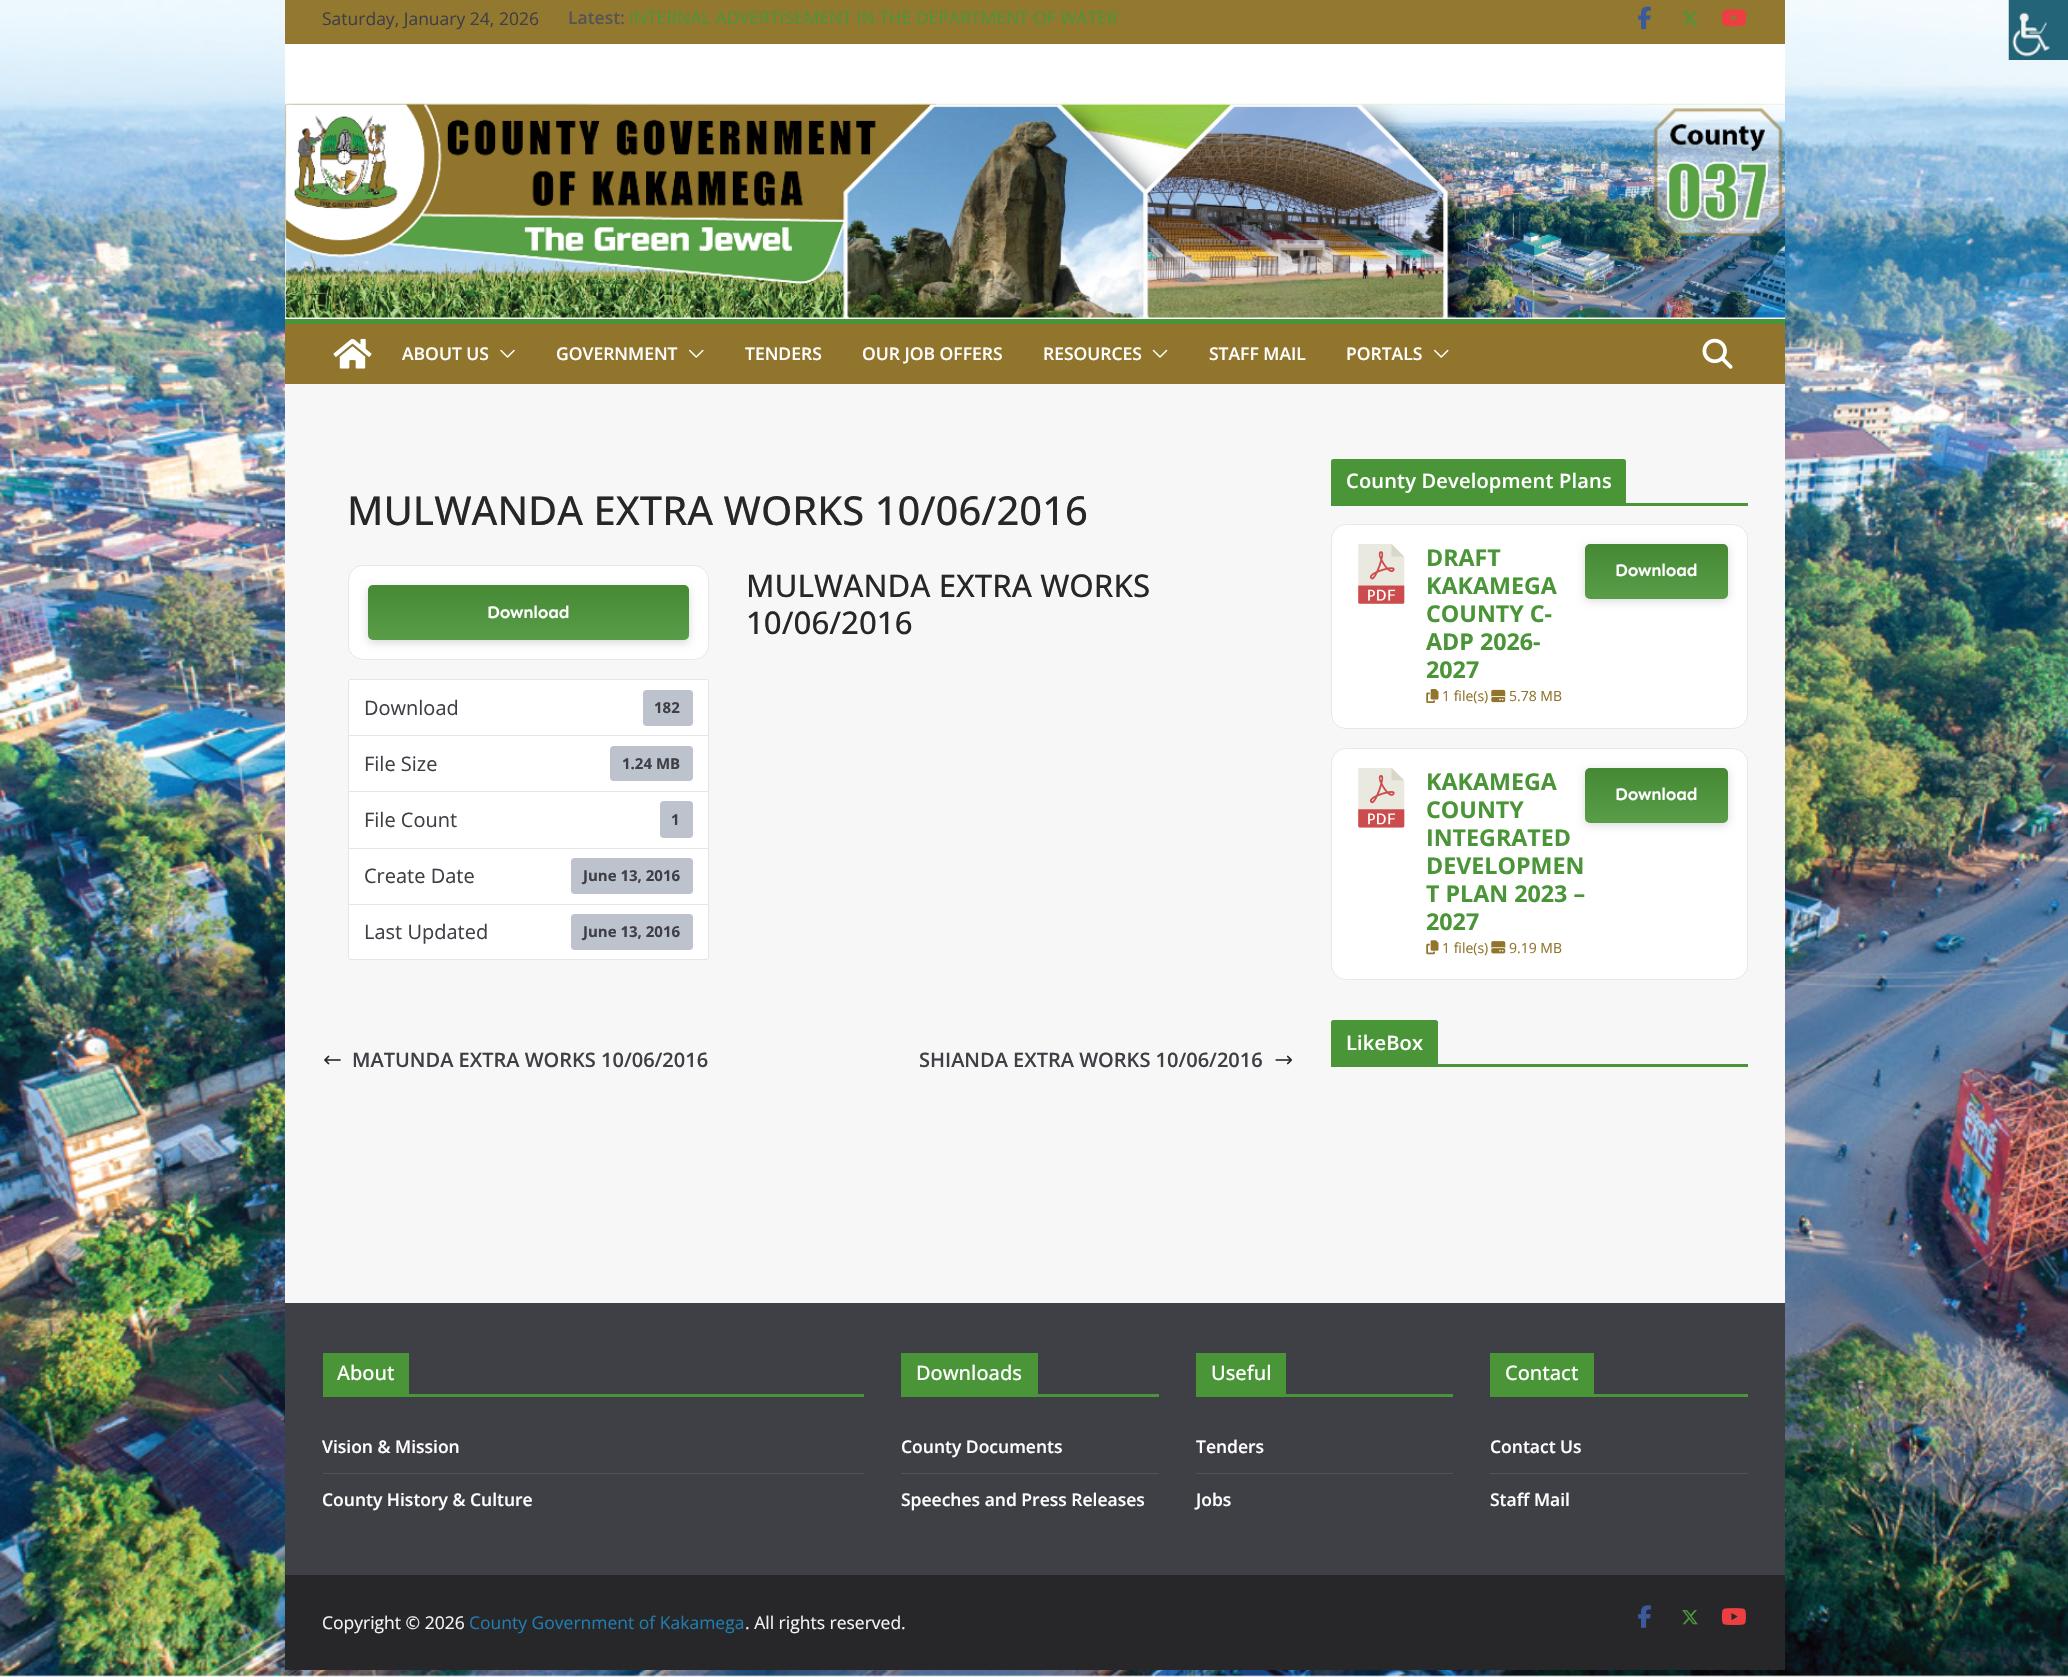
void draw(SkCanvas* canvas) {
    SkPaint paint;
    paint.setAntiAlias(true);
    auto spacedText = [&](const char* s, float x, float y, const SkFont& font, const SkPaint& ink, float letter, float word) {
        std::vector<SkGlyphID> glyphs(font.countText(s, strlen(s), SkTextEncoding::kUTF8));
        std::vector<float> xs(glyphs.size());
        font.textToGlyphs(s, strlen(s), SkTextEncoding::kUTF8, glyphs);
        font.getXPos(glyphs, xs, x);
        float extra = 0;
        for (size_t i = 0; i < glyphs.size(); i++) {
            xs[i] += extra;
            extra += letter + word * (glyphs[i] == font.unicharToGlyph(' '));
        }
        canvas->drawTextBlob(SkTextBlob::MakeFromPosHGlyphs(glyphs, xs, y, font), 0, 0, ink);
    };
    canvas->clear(0xFFFFFFFF);
    canvas->drawImageRect(SkImages::DeferredFromEncodedData(SkData::MakeFromFileName("img1.png")), SkRect::MakeXYWH(0, 0, 2068, 1677), SkSamplingOptions());
    paint.setColor(0xFFFFFFFF);
    canvas->drawRect(SkRect::MakeXYWH(285, 0, 1500, 319), paint);
    paint.setColor(0xFA91752C);
    canvas->drawRect(SkRect::MakeXYWH(285, 0, 1500, 44), paint);
    SkFont font1(fontMgr->matchFamilyStyle("Open Sans", SkFontStyle::Normal()), 17.5f);
    font1.setSubpixel(true);
    paint.setColor(0xFF3F3F46);
    canvas->drawString("Saturday, January 24, 2026", 322, 25, font1, paint);
    SkFont font2(fontMgr->matchFamilyStyle("Open Sans", SkFontStyle(600, SkFontStyle::kNormal_Width, SkFontStyle::kUpright_Slant)), 17.5f);
    font2.setSubpixel(true);
    paint.setColor(0xFF555555);
    canvas->drawString("Latest:", 568, 24, font2, paint);
    paint.setColor(0xFF4B9539);
    canvas->drawString("INTERNAL ADVERTISEMENT IN THE DEPARTMENT OF WATER", 629, 24, font1, paint);
    canvas->drawImageRect(SkImages::DeferredFromEncodedData(SkData::MakeFromFileName("img2.png")), SkRect::MakeXYWH(1638, 6, 13, 24), SkSamplingOptions());
    canvas->drawImageRect(SkImages::DeferredFromEncodedData(SkData::MakeFromFileName("img3.png")), SkRect::MakeXYWH(1682, 11, 16, 15), SkSamplingOptions());
    canvas->drawImageRect(SkImages::DeferredFromEncodedData(SkData::MakeFromFileName("img4.png")), SkRect::MakeXYWH(1721, 9, 25, 18), SkSamplingOptions());
    canvas->drawImageRect(SkImages::DeferredFromEncodedData(SkData::MakeFromFileName("img5.png")), SkRect::MakeXYWH(285, 103, 1500, 215), SkSamplingOptions());
    paint.setColor(0xFF91752C);
    canvas->drawRect(SkRect::MakeXYWH(285, 324, 1500, 60), paint);
    paint.setColor(0xFF4B9539);
    canvas->drawRect(SkRect::MakeXYWH(285, 319, 1500, 5), paint);
    canvas->drawImageRect(SkImages::DeferredFromEncodedData(SkData::MakeFromFileName("img6.png")), SkRect::MakeXYWH(333, 338, 39, 31), SkSamplingOptions());
    paint.setColor(0xFFFFFFFF);
    canvas->drawString("ABOUT US", 402, 360, font2, paint);
    canvas->drawImageRect(SkImages::DeferredFromEncodedData(SkData::MakeFromFileName("img7.png")), SkRect::MakeXYWH(500, 349, 15, 9), SkSamplingOptions());
    canvas->drawString("GOVERNMENT", 556, 360, font2, paint);
    canvas->drawImageRect(SkImages::DeferredFromEncodedData(SkData::MakeFromFileName("img8.png")), SkRect::MakeXYWH(689, 349, 15, 9), SkSamplingOptions());
    canvas->drawString("TENDERS", 745, 360, font2, paint);
    canvas->drawString("OUR JOB OFFERS", 862, 360, font2, paint);
    canvas->drawString("RESOURCES", 1043, 360, font2, paint);
    canvas->drawImageRect(SkImages::DeferredFromEncodedData(SkData::MakeFromFileName("img9.png")), SkRect::MakeXYWH(1152, 349, 16, 9), SkSamplingOptions());
    canvas->drawString("STAFF MAIL", 1209, 360, font2, paint);
    canvas->drawString("PORTALS", 1346, 360, font2, paint);
    canvas->drawImageRect(SkImages::DeferredFromEncodedData(SkData::MakeFromFileName("img8.png")), SkRect::MakeXYWH(1434, 349, 15, 9), SkSamplingOptions());
    canvas->drawImageRect(SkImages::DeferredFromEncodedData(SkData::MakeFromFileName("img10.png")), SkRect::MakeXYWH(1702, 338, 31, 31), SkSamplingOptions());
    paint.setColor(0xFFF7F7F7);
    canvas->drawRect(SkRect::MakeXYWH(285, 384, 1500, 919), paint);
    SkFont font3(fontMgr->matchFamilyStyle("Open Sans", SkFontStyle(500, SkFontStyle::kNormal_Width, SkFontStyle::kUpright_Slant)), 40);
    font3.setSubpixel(true);
    paint.setColor(0xFF27272A);
    canvas->drawString("MULWANDA EXTRA WORKS 10/06/2016", 347, 525, font3, paint);
    paint.setColor(0xFFFFFFFF);
    canvas->drawRoundRect(SkRect::MakeXYWH(348.5f, 565.5f, 360, 94), 14.5f, 14.5f, paint);
    paint.setStyle(SkPaint::kStroke_Style);
    paint.setStrokeWidth(1);
    paint.setColor(0xFFE2E8F0);
    canvas->drawRoundRect(SkRect::MakeXYWH(348.5f, 565.5f, 360, 94), 14.5f, 14.5f, paint);
    paint.setStyle(SkPaint::kFill_Style);
    paint.setColor(0x26000000);
    paint.setMaskFilter(SkMaskFilter::MakeBlur(kNormal_SkBlurStyle, 4));
    canvas->drawRoundRect(SkRect::MakeXYWH(368, 588, 321, 55), 5, 5, paint);
    paint.setMaskFilter(nullptr);
    paint.setColor(0xFF4B9539);
    canvas->drawRoundRect(SkRect::MakeXYWH(368, 585, 321, 55), 5, 5, paint);
    {
        const SkColor colors[] = {0x14000000, 0x14FFFFFF};
        const float stops[] = {0, 1};
        const SkPoint ends[] = {{528, 585}, {528, 640}};
        paint.setShader(SkGradientShader::MakeLinear(ends, colors, stops, 2, SkTileMode::kClamp));
        paint.setAlpha(255);
    }
    canvas->drawRoundRect(SkRect::MakeXYWH(368, 585, 321, 55), 5, 5, paint);
    SkFont font4(fontMgr->matchFamilyStyle("Sen", SkFontStyle(600, SkFontStyle::kNormal_Width, SkFontStyle::kUpright_Slant)), 17.5f);
    font4.setSubpixel(true);
    paint.setShader(nullptr);
    paint.setColor(0xFFFFFFFF);
    spacedText("Download", 487, 618, font4, paint, -0.25f, 0);
    canvas->drawPath(SkPathBuilder().moveTo(351, 679.5f).lineTo(706, 679.5f).cubicTo(707.5f, 679.5f, 708.5f, 680.5f, 708.5f, 682).lineTo(708.5f, 735.5f).lineTo(348.5f, 735.5f).lineTo(348.5f, 682).cubicTo(348.5f, 680.5f, 349.5f, 679.5f, 351, 679.5f).close().detach(), paint);
    paint.setStyle(SkPaint::kStroke_Style);
    paint.setColor(0xFFE5E5E5);
    canvas->drawPath(SkPathBuilder().moveTo(351, 679.5f).lineTo(706, 679.5f).cubicTo(707.5f, 679.5f, 708.5f, 680.5f, 708.5f, 682).lineTo(708.5f, 735.5f).lineTo(348.5f, 735.5f).lineTo(348.5f, 682).cubicTo(348.5f, 680.5f, 349.5f, 679.5f, 351, 679.5f).close().detach(), paint);
    SkFont font5(fontMgr->matchFamilyStyle("Open Sans", SkFontStyle::Normal()), 20);
    font5.setSubpixel(true);
    paint.setStyle(SkPaint::kFill_Style);
    paint.setColor(0xFF3F3F46);
    canvas->drawString("Download", 364, 715, font5, paint);
    paint.setColor(0xFFBCC3CC);
    canvas->drawRoundRect(SkRect::MakeXYWH(643, 690, 50, 36), 4, 4, paint);
    SkFont font6(fontMgr->matchFamilyStyle("Open Sans", SkFontStyle::Bold()), 15);
    font6.setSubpixel(true);
    paint.setColor(0xFF3F3F46);
    canvas->drawString("182", 654, 713, font6, paint);
    paint.setColor(0xFFFFFFFF);
    canvas->drawRect(SkRect::MakeXYWH(349, 736, 359, 55), paint);
    paint.setStyle(SkPaint::kStroke_Style);
    paint.setColor(0xFFE5E5E5);
    canvas->drawRect(SkRect::MakeXYWH(348.5f, 735.5f, 360, 57), paint);
    paint.setStyle(SkPaint::kFill_Style);
    paint.setColor(0xFF3F3F46);
    canvas->drawString("File Size", 364, 771, font5, paint);
    paint.setColor(0xFFBCC3CC);
    canvas->drawRoundRect(SkRect::MakeXYWH(610, 746, 83, 35), 4, 4, paint);
    paint.setColor(0xFF3F3F46);
    canvas->drawString("1.24 MB", 622, 769, font6, paint);
    paint.setColor(0xFFFFFFFF);
    canvas->drawRect(SkRect::MakeXYWH(348.5f, 791.5f, 360, 57), paint);
    paint.setStyle(SkPaint::kStroke_Style);
    paint.setColor(0xFFE5E5E5);
    canvas->drawRect(SkRect::MakeXYWH(348.5f, 791.5f, 360, 57), paint);
    paint.setStyle(SkPaint::kFill_Style);
    paint.setColor(0xFF3F3F46);
    canvas->drawString("File Count", 364, 827, font5, paint);
    paint.setColor(0xFFBCC3CC);
    canvas->drawRoundRect(SkRect::MakeXYWH(660, 801, 33, 37), 4, 4, paint);
    paint.setColor(0xFF3F3F46);
    canvas->drawString("1", 671, 825, font6, paint);
    paint.setColor(0xFFFFFFFF);
    canvas->drawRect(SkRect::MakeXYWH(348.5f, 848.5f, 360, 56), paint);
    paint.setStyle(SkPaint::kStroke_Style);
    paint.setColor(0xFFE5E5E5);
    canvas->drawRect(SkRect::MakeXYWH(348.5f, 848.5f, 360, 56), paint);
    paint.setStyle(SkPaint::kFill_Style);
    paint.setColor(0xFF3F3F46);
    canvas->drawString("Create Date", 364, 883, font5, paint);
    paint.setColor(0xFFBCC3CC);
    canvas->drawRoundRect(SkRect::MakeXYWH(571, 858, 122, 36), 4, 4, paint);
    paint.setColor(0xFF3F3F46);
    canvas->drawString("June 13, 2016", 583, 881, font6, paint);
    paint.setColor(0xFFFFFFFF);
    canvas->drawPath(SkPathBuilder().moveTo(348.5f, 904.5f).lineTo(708.5f, 904.5f).lineTo(708.5f, 957).cubicTo(708.5f, 958.5f, 707.5f, 959.5f, 706, 959.5f).lineTo(351, 959.5f).cubicTo(349.5f, 959.5f, 348.5f, 958.5f, 348.5f, 957).close().detach(), paint);
    paint.setStyle(SkPaint::kStroke_Style);
    paint.setColor(0xFFE5E5E5);
    canvas->drawPath(SkPathBuilder().moveTo(348.5f, 904.5f).lineTo(708.5f, 904.5f).lineTo(708.5f, 957).cubicTo(708.5f, 958.5f, 707.5f, 959.5f, 706, 959.5f).lineTo(351, 959.5f).cubicTo(349.5f, 959.5f, 348.5f, 958.5f, 348.5f, 957).close().detach(), paint);
    paint.setStyle(SkPaint::kFill_Style);
    paint.setColor(0xFF3F3F46);
    canvas->drawString("Last Updated", 364, 939, font5, paint);
    paint.setColor(0xFFBCC3CC);
    canvas->drawRoundRect(SkRect::MakeXYWH(571, 914, 122, 36), 4, 4, paint);
    paint.setColor(0xFF3F3F46);
    canvas->drawString("June 13, 2016", 583, 937, font6, paint);
    SkFont font7(fontMgr->matchFamilyStyle("Open Sans", SkFontStyle(500, SkFontStyle::kNormal_Width, SkFontStyle::kUpright_Slant)), 31.25f);
    font7.setSubpixel(true);
    paint.setColor(0xFF27272A);
    canvas->drawString("MULWANDA EXTRA WORKS", 746, 597, font7, paint);
    canvas->drawString("10/06/2016", 746, 634, font7, paint);
    canvas->drawImageRect(SkImages::DeferredFromEncodedData(SkData::MakeFromFileName("img11.png")), SkRect::MakeXYWH(324, 1055, 17, 10), SkSamplingOptions());
    SkFont font8(fontMgr->matchFamilyStyle("Open Sans", SkFontStyle(600, SkFontStyle::kNormal_Width, SkFontStyle::kUpright_Slant)), 20);
    font8.setSubpixel(true);
    paint.setColor(0xFF3F3F46);
    canvas->drawString("MATUNDA EXTRA WORKS 10/06/2016", 352, 1067, font8, paint);
    canvas->drawString("SHIANDA EXTRA WORKS 10/06/2016", 919, 1067, font8, paint);
    canvas->drawImageRect(SkImages::DeferredFromEncodedData(SkData::MakeFromFileName("img12.png")), SkRect::MakeXYWH(1275, 1055, 17, 10), SkSamplingOptions());
    paint.setColor(0xFF4B9539);
    canvas->drawRect(SkRect::MakeXYWH(1331, 503, 417, 3), paint);
    canvas->drawPath(SkPathBuilder().moveTo(1333.5f, 459).lineTo(1623.5f, 459).cubicTo(1625, 459, 1626, 460, 1626, 461.5f).lineTo(1626, 503).lineTo(1331, 503).lineTo(1331, 461.5f).cubicTo(1331, 460, 1332, 459, 1333.5f, 459).close().detach(), paint);
    paint.setColor(0xFFFFFFFF);
    spacedText("County Development Plans", 1346, 488, font8, paint, 0.2f, 0);
    canvas->drawRoundRect(SkRect::MakeXYWH(1331.5f, 524.5f, 416, 204), 14.5f, 14.5f, paint);
    paint.setStyle(SkPaint::kStroke_Style);
    paint.setColor(0xFFE2E8F0);
    canvas->drawRoundRect(SkRect::MakeXYWH(1331.5f, 524.5f, 416, 204), 14.5f, 14.5f, paint);
    canvas->drawImageRect(SkImages::DeferredFromEncodedData(SkData::MakeFromFileName("img13.png")), SkRect::MakeXYWH(1358, 544, 47, 60), SkSamplingOptions());
    SkFont font9(fontMgr->matchFamilyStyle("Open Sans", SkFontStyle::Bold()), 23.25f);
    font9.setSubpixel(true);
    paint.setStyle(SkPaint::kFill_Style);
    paint.setColor(0xFF4B9539);
    canvas->drawString("DRAFT", 1426, 566, font9, paint);
    canvas->drawString("KAKAMEGA", 1426, 594, font9, paint);
    canvas->drawString("COUNTY C-", 1426, 622, font9, paint);
    canvas->drawString("ADP 2026-", 1426, 650, font9, paint);
    canvas->drawString("2027", 1426, 678, font9, paint);
    canvas->drawImageRect(SkImages::DeferredFromEncodedData(SkData::MakeFromFileName("img14.png")), SkRect::MakeXYWH(1426, 689, 13, 14), SkSamplingOptions());
    SkFont font10(fontMgr->matchFamilyStyle("Open Sans", SkFontStyle::Normal()), 14);
    font10.setSubpixel(true);
    paint.setColor(0xFF91752C);
    canvas->drawString("1 file(s)", 1442, 701, font10, paint);
    canvas->drawImageRect(SkImages::DeferredFromEncodedData(SkData::MakeFromFileName("img15.png")), SkRect::MakeXYWH(1491, 689, 15, 14), SkSamplingOptions());
    canvas->drawString("5.78 MB", 1509, 701, font10, paint);
    paint.setColor(0x26000000);
    paint.setMaskFilter(SkMaskFilter::MakeBlur(kNormal_SkBlurStyle, 4));
    canvas->drawRoundRect(SkRect::MakeXYWH(1585, 546, 143, 55), 5, 5, paint);
    paint.setMaskFilter(nullptr);
    paint.setColor(0xFF4B9539);
    canvas->drawRoundRect(SkRect::MakeXYWH(1585, 544, 143, 55), 5, 5, paint);
    {
        const SkColor colors[] = {0x14000000, 0x14FFFFFF};
        const float stops[] = {0, 1};
        const SkPoint ends[] = {{1656, 544}, {1656, 599}};
        paint.setShader(SkGradientShader::MakeLinear(ends, colors, stops, 2, SkTileMode::kClamp));
        paint.setAlpha(255);
    }
    canvas->drawRoundRect(SkRect::MakeXYWH(1585, 544, 143, 55), 5, 5, paint);
    paint.setShader(nullptr);
    paint.setColor(0xFFFFFFFF);
    spacedText("Download", 1615, 576, font4, paint, -0.25f, 0);
    canvas->drawRoundRect(SkRect::MakeXYWH(1331.5f, 748.5f, 416, 231), 14.5f, 14.5f, paint);
    paint.setStyle(SkPaint::kStroke_Style);
    paint.setColor(0xFFE2E8F0);
    canvas->drawRoundRect(SkRect::MakeXYWH(1331.5f, 748.5f, 416, 231), 14.5f, 14.5f, paint);
    canvas->drawImageRect(SkImages::DeferredFromEncodedData(SkData::MakeFromFileName("img16.png")), SkRect::MakeXYWH(1358, 768, 47, 60), SkSamplingOptions());
    paint.setStyle(SkPaint::kFill_Style);
    paint.setColor(0xFF4B9539);
    canvas->drawString("KAKAMEGA", 1426, 790, font9, paint);
    canvas->drawString("COUNTY", 1426, 818, font9, paint);
    canvas->drawString("INTEGRATED", 1426, 846, font9, paint);
    canvas->drawString("DEVELOPMEN", 1426, 874, font9, paint);
    canvas->drawString("T PLAN 2023 –", 1426, 902, font9, paint);
    canvas->drawString("2027", 1426, 930, font9, paint);
    canvas->drawImageRect(SkImages::DeferredFromEncodedData(SkData::MakeFromFileName("img17.png")), SkRect::MakeXYWH(1426, 940, 13, 15), SkSamplingOptions());
    paint.setColor(0xFF91752C);
    canvas->drawString("1 file(s)", 1442, 953, font10, paint);
    canvas->drawImageRect(SkImages::DeferredFromEncodedData(SkData::MakeFromFileName("img18.png")), SkRect::MakeXYWH(1491, 941, 15, 13), SkSamplingOptions());
    canvas->drawString("9.19 MB", 1509, 953, font10, paint);
    paint.setColor(0x26000000);
    paint.setMaskFilter(SkMaskFilter::MakeBlur(kNormal_SkBlurStyle, 4));
    canvas->drawRoundRect(SkRect::MakeXYWH(1585, 770, 143, 55), 5, 5, paint);
    paint.setMaskFilter(nullptr);
    paint.setColor(0xFF4B9539);
    canvas->drawRoundRect(SkRect::MakeXYWH(1585, 768, 143, 55), 5, 5, paint);
    {
        const SkColor colors[] = {0x14000000, 0x14FFFFFF};
        const float stops[] = {0, 1};
        const SkPoint ends[] = {{1656, 768}, {1656, 823}};
        paint.setShader(SkGradientShader::MakeLinear(ends, colors, stops, 2, SkTileMode::kClamp));
        paint.setAlpha(255);
    }
    canvas->drawRoundRect(SkRect::MakeXYWH(1585, 768, 143, 55), 5, 5, paint);
    paint.setShader(nullptr);
    paint.setColor(0xFFFFFFFF);
    spacedText("Download", 1615, 800, font4, paint, -0.25f, 0);
    paint.setColor(0xFF4B9539);
    canvas->drawRect(SkRect::MakeXYWH(1331, 1064, 417, 3), paint);
    canvas->drawPath(SkPathBuilder().moveTo(1333.5f, 1020).lineTo(1435.5f, 1020).cubicTo(1437, 1020, 1438, 1021, 1438, 1022.5f).lineTo(1438, 1064).lineTo(1331, 1064).lineTo(1331, 1022.5f).cubicTo(1331, 1021, 1332, 1020, 1333.5f, 1020).close().detach(), paint);
    paint.setColor(0xFFFFFFFF);
    spacedText("LikeBox", 1346, 1050, font8, paint, 0.2f, 0);
    paint.setColor(0xFF3F3F46);
    canvas->drawRect(SkRect::MakeXYWH(285, 1303, 1500, 272), paint);
    paint.setColor(0xFF4B9539);
    canvas->drawRect(SkRect::MakeXYWH(323, 1394, 541, 3), paint);
    canvas->drawRect(SkRect::MakeXYWH(323, 1353, 86, 41), paint);
    SkFont font11(fontMgr->matchFamilyStyle("Open Sans", SkFontStyle(500, SkFontStyle::kNormal_Width, SkFontStyle::kUpright_Slant)), 20);
    font11.setSubpixel(true);
    paint.setColor(0xFFFFFFFF);
    canvas->drawString("About", 337, 1380, font11, paint);
    paint.setColor(0xFF52525B);
    canvas->drawRect(SkRect::MakeXYWH(323, 1473, 541, 1), paint);
    paint.setColor(0xFFFFFFFF);
    canvas->drawString("Vision & Mission", 322, 1453, font2, paint);
    canvas->drawString("County History & Culture", 322, 1506, font2, paint);
    paint.setColor(0xFF4B9539);
    canvas->drawRect(SkRect::MakeXYWH(901, 1394, 258, 3), paint);
    canvas->drawRect(SkRect::MakeXYWH(901, 1353, 137, 41), paint);
    paint.setColor(0xFFFFFFFF);
    canvas->drawString("Downloads", 916, 1380, font11, paint);
    paint.setColor(0xFF52525B);
    canvas->drawRect(SkRect::MakeXYWH(901, 1473, 258, 1), paint);
    paint.setColor(0xFFFFFFFF);
    canvas->drawString("County Documents", 901, 1453, font2, paint);
    canvas->drawString("Speeches and Press Releases", 901, 1506, font2, paint);
    paint.setColor(0xFF4B9539);
    canvas->drawRect(SkRect::MakeXYWH(1196, 1394, 257, 3), paint);
    canvas->drawRect(SkRect::MakeXYWH(1196, 1353, 90, 41), paint);
    paint.setColor(0xFFFFFFFF);
    canvas->drawString("Useful", 1211, 1380, font11, paint);
    paint.setColor(0xFF52525B);
    canvas->drawRect(SkRect::MakeXYWH(1196, 1473, 257, 1), paint);
    paint.setColor(0xFFFFFFFF);
    canvas->drawString("Tenders", 1196, 1453, font2, paint);
    canvas->drawString("Jobs", 1196, 1506, font2, paint);
    paint.setColor(0xFF4B9539);
    canvas->drawRect(SkRect::MakeXYWH(1490, 1394, 258, 3), paint);
    canvas->drawRect(SkRect::MakeXYWH(1490, 1353, 104, 41), paint);
    paint.setColor(0xFFFFFFFF);
    canvas->drawString("Contact", 1505, 1380, font11, paint);
    paint.setColor(0xFF52525B);
    canvas->drawRect(SkRect::MakeXYWH(1490, 1473, 258, 1), paint);
    paint.setColor(0xFFFFFFFF);
    canvas->drawString("Contact Us", 1490, 1453, font2, paint);
    canvas->drawString("Staff Mail", 1490, 1506, font2, paint);
    paint.setColor(0xFF27272A);
    canvas->drawRect(SkRect::MakeXYWH(285, 1575, 1500, 95), paint);
    paint.setColor(0xFFF4F4F5);
    canvas->drawString("Copyright © 2026", 322, 1629, font1, paint);
    paint.setColor(0xFF207DAF);
    canvas->drawString("County Government of Kakamega", 469, 1629, font1, paint);
    paint.setColor(0xFFF4F4F5);
    canvas->drawString(". All rights reserved.", 745, 1629, font1, paint);
    canvas->drawImageRect(SkImages::DeferredFromEncodedData(SkData::MakeFromFileName("img19.png")), SkRect::MakeXYWH(1638, 1605, 13, 23), SkSamplingOptions());
    canvas->drawImageRect(SkImages::DeferredFromEncodedData(SkData::MakeFromFileName("img20.png")), SkRect::MakeXYWH(1682, 1610, 16, 15), SkSamplingOptions());
    canvas->drawImageRect(SkImages::DeferredFromEncodedData(SkData::MakeFromFileName("img21.png")), SkRect::MakeXYWH(1721, 1608, 25, 17), SkSamplingOptions());
    canvas->drawImageRect(SkImages::DeferredFromEncodedData(SkData::MakeFromFileName("img22.png")), SkRect::MakeXYWH(2008, 0, 60, 60), SkSamplingOptions());
}
